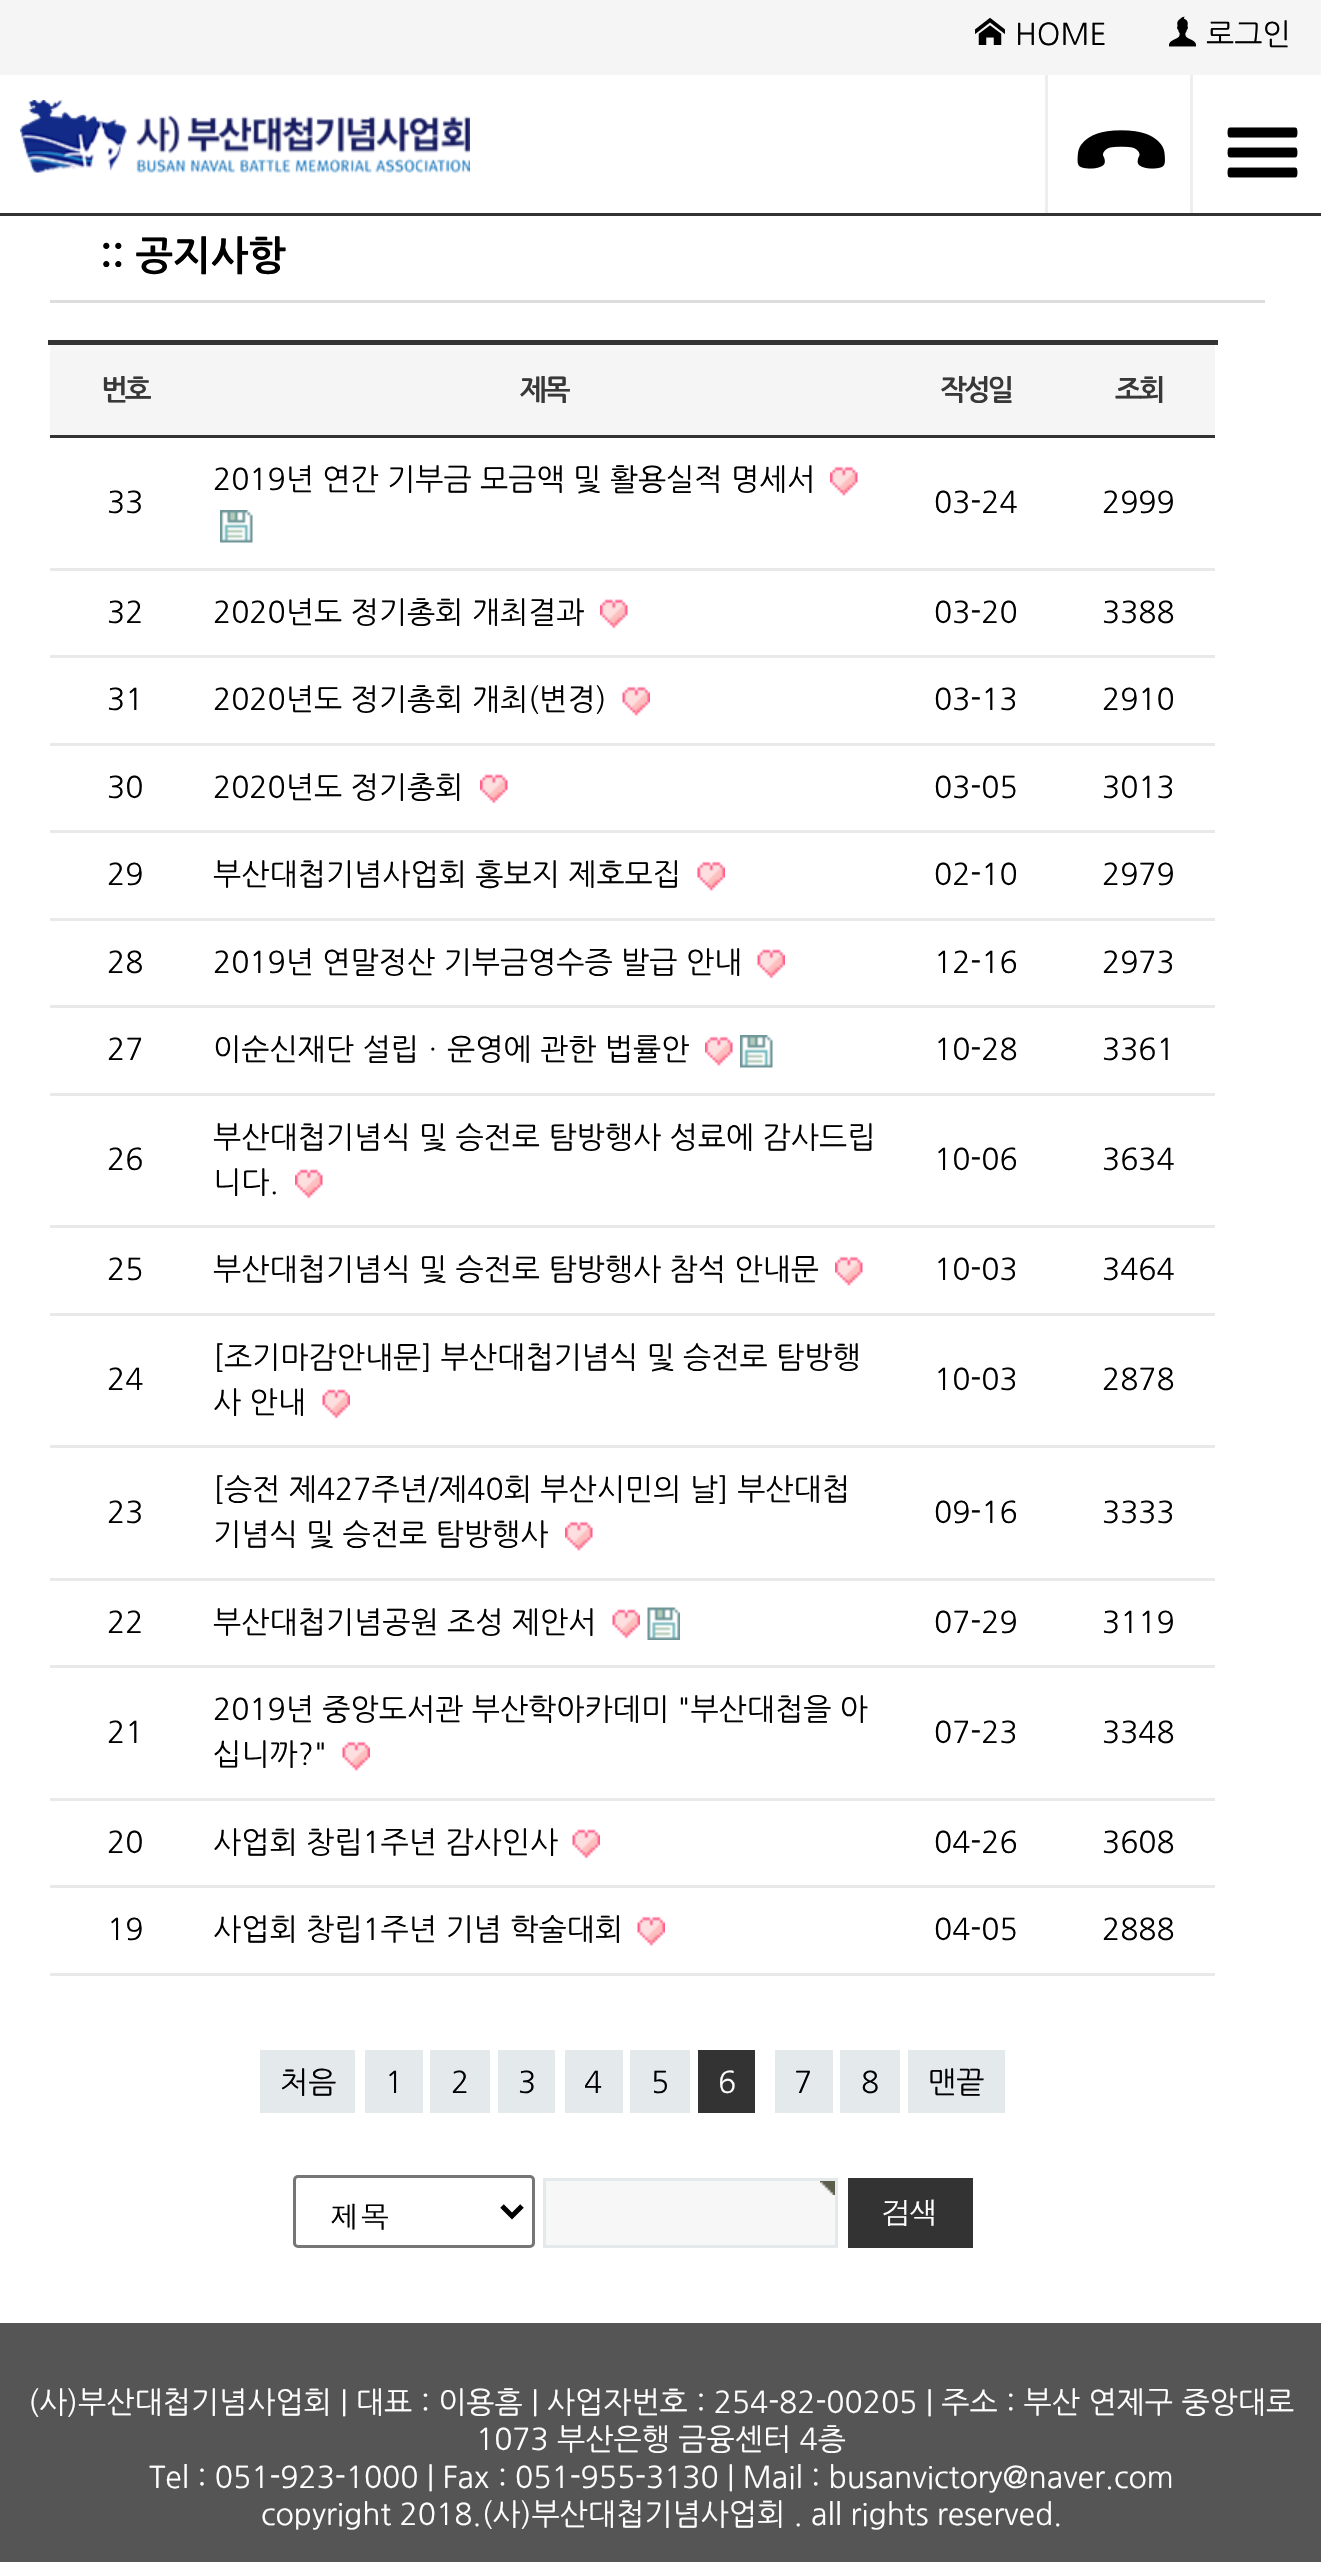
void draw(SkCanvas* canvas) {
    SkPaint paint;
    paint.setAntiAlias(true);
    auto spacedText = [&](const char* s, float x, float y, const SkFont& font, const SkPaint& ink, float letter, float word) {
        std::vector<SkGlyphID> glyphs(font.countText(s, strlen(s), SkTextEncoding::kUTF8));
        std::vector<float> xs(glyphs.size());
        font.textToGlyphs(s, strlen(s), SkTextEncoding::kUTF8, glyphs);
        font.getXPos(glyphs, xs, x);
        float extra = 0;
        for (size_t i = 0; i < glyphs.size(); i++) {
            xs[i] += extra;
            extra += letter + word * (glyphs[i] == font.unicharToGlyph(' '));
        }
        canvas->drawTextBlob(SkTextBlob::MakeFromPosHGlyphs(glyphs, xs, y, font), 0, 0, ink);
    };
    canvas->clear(0xFFFFFFFF);
    paint.setColor(0xFF333333);
    canvas->drawRect(SkRect::MakeXYWH(0, 213, 1321, 3), paint);
    paint.setColor(0xFFF5F5F5);
    canvas->drawRect(SkRect::MakeXYWH(0, 0, 1321, 75), paint);
    canvas->drawImageRect(SkImages::DeferredFromEncodedData(SkData::MakeFromFileName("img1.png")), SkRect::MakeXYWH(975, 17, 30, 28), SkSamplingOptions());
    SkFont font1(fontMgr->matchFamilyStyle("NanumGothic", SkFontStyle::Normal()), 30);
    font1.setSubpixel(true);
    paint.setColor(0xFF000000);
    canvas->drawString("HOME", 1015, 45, font1, paint);
    canvas->drawImageRect(SkImages::DeferredFromEncodedData(SkData::MakeFromFileName("img2.png")), SkRect::MakeXYWH(1169, 16, 27, 31), SkSamplingOptions());
    canvas->drawString("로그인", 1206, 45, font1, paint);
    canvas->drawImageRect(SkImages::DeferredFromEncodedData(SkData::MakeFromFileName("img3.png")), SkRect::MakeXYWH(20, 100, 450, 73), SkSamplingOptions());
    paint.setColor(0xFFEEEEEE);
    canvas->drawRect(SkRect::MakeXYWH(1045, 75, 3, 138), paint);
    canvas->drawImageRect(SkImages::DeferredFromEncodedData(SkData::MakeFromFileName("img4.png")), SkRect::MakeXYWH(1077, 130, 88, 39), SkSamplingOptions());
    canvas->drawRect(SkRect::MakeXYWH(1190, 75, 3, 138), paint);
    canvas->drawImageRect(SkImages::DeferredFromEncodedData(SkData::MakeFromFileName("img5.png")), SkRect::MakeXYWH(1227, 127, 71, 51), SkSamplingOptions());
    paint.setColor(0xFFDDDDDD);
    canvas->drawRect(SkRect::MakeXYWH(50, 300, 1215, 3), paint);
    SkFont font2(fontMgr->matchFamilyStyle("NanumGothic", SkFontStyle::Bold()), 40);
    font2.setSubpixel(true);
    paint.setColor(0xFF000000);
    canvas->drawString(":: 공지사항", 100, 270, font2, paint);
    paint.setColor(0xFFF5F5F5);
    canvas->drawRect(SkRect::MakeXYWH(50, 345, 1165, 90), paint);
    SkFont font3(fontMgr->matchFamilyStyle("NanumGothic", SkFontStyle::Bold()), 28.5f);
    font3.setSubpixel(true);
    paint.setColor(0xFF383838);
    spacedText("번호", 101, 400, font3, paint, -3, 0);
    spacedText("제목", 520, 400, font3, paint, -3, 0);
    spacedText("작성일", 940, 400, font3, paint, -3, 0);
    paint.setColor(0xFF333333);
    canvas->drawRect(SkRect::MakeXYWH(50, 435, 1165, 3), paint);
    canvas->drawRect(SkRect::MakeXYWH(48, 340, 1170, 5), paint);
    paint.setColor(0xFF383838);
    spacedText("조회", 1115, 400, font3, paint, -3, 0);
    paint.setColor(0xFF000000);
    canvas->drawString("2019년 연간 기부금 모금액 및 활용실적 명세서", 213, 490, font1, paint);
    canvas->drawImageRect(SkImages::DeferredFromEncodedData(SkData::MakeFromFileName("img6.png")), SkRect::MakeXYWH(830, 466, 28, 30), SkSamplingOptions());
    canvas->drawImageRect(SkImages::DeferredFromEncodedData(SkData::MakeFromFileName("img7.png")), SkRect::MakeXYWH(220, 510, 33, 33), SkSamplingOptions());
    canvas->drawString("33", 107, 513, font1, paint);
    canvas->drawString("03-24", 934, 513, font1, paint);
    canvas->drawString("2999", 1102, 513, font1, paint);
    canvas->drawString("32", 107, 623, font1, paint);
    canvas->drawString("2020년도 정기총회 개최결과", 213, 623, font1, paint);
    canvas->drawImageRect(SkImages::DeferredFromEncodedData(SkData::MakeFromFileName("img8.png")), SkRect::MakeXYWH(600, 599, 28, 30), SkSamplingOptions());
    canvas->drawString("03-20", 934, 623, font1, paint);
    paint.setColor(0xFFE9E9E9);
    canvas->drawRect(SkRect::MakeXYWH(50, 568, 1165, 3), paint);
    paint.setColor(0xFF000000);
    canvas->drawString("3388", 1102, 623, font1, paint);
    canvas->drawString("31", 107, 710, font1, paint);
    canvas->drawString("2020년도 정기총회 개최(변경)", 213, 710, font1, paint);
    canvas->drawImageRect(SkImages::DeferredFromEncodedData(SkData::MakeFromFileName("img9.png")), SkRect::MakeXYWH(622, 686, 28, 30), SkSamplingOptions());
    canvas->drawString("03-13", 934, 710, font1, paint);
    paint.setColor(0xFFE9E9E9);
    canvas->drawRect(SkRect::MakeXYWH(50, 655, 1165, 3), paint);
    paint.setColor(0xFF000000);
    canvas->drawString("2910", 1102, 710, font1, paint);
    canvas->drawString("30", 107, 798, font1, paint);
    canvas->drawString("2020년도 정기총회", 213, 798, font1, paint);
    canvas->drawImageRect(SkImages::DeferredFromEncodedData(SkData::MakeFromFileName("img10.png")), SkRect::MakeXYWH(480, 774, 28, 30), SkSamplingOptions());
    canvas->drawString("03-05", 934, 798, font1, paint);
    paint.setColor(0xFFE9E9E9);
    canvas->drawRect(SkRect::MakeXYWH(50, 743, 1165, 3), paint);
    paint.setColor(0xFF000000);
    canvas->drawString("3013", 1102, 798, font1, paint);
    canvas->drawString("29", 107, 885, font1, paint);
    canvas->drawString("부산대첩기념사업회 홍보지 제호모집", 213, 885, font1, paint);
    canvas->drawImageRect(SkImages::DeferredFromEncodedData(SkData::MakeFromFileName("img9.png")), SkRect::MakeXYWH(697, 861, 28, 30), SkSamplingOptions());
    canvas->drawString("02-10", 934, 885, font1, paint);
    paint.setColor(0xFFE9E9E9);
    canvas->drawRect(SkRect::MakeXYWH(50, 830, 1165, 3), paint);
    paint.setColor(0xFF000000);
    canvas->drawString("2979", 1102, 885, font1, paint);
    canvas->drawString("28", 107, 973, font1, paint);
    canvas->drawString("2019년 연말정산 기부금영수증 발급 안내", 213, 973, font1, paint);
    canvas->drawImageRect(SkImages::DeferredFromEncodedData(SkData::MakeFromFileName("img11.png")), SkRect::MakeXYWH(757, 949, 28, 30), SkSamplingOptions());
    canvas->drawString("12-16", 934, 973, font1, paint);
    paint.setColor(0xFFE9E9E9);
    canvas->drawRect(SkRect::MakeXYWH(50, 918, 1165, 3), paint);
    paint.setColor(0xFF000000);
    canvas->drawString("2973", 1102, 973, font1, paint);
    canvas->drawString("27", 107, 1060, font1, paint);
    canvas->drawString("이순신재단 설립ㆍ운영에 관한 법률안", 213, 1060, font1, paint);
    canvas->drawImageRect(SkImages::DeferredFromEncodedData(SkData::MakeFromFileName("img6.png")), SkRect::MakeXYWH(705, 1036, 28, 30), SkSamplingOptions());
    canvas->drawImageRect(SkImages::DeferredFromEncodedData(SkData::MakeFromFileName("img12.png")), SkRect::MakeXYWH(740, 1035, 33, 33), SkSamplingOptions());
    canvas->drawString("10-28", 934, 1060, font1, paint);
    paint.setColor(0xFFE9E9E9);
    canvas->drawRect(SkRect::MakeXYWH(50, 1005, 1165, 3), paint);
    paint.setColor(0xFF000000);
    canvas->drawString("3361", 1102, 1060, font1, paint);
    canvas->drawString("26", 107, 1170, font1, paint);
    canvas->drawString("부산대첩기념식 및 승전로 탐방행사 성료에 감사드립", 213, 1148, font1, paint);
    canvas->drawString("니다.", 213, 1193, font1, paint);
    canvas->drawImageRect(SkImages::DeferredFromEncodedData(SkData::MakeFromFileName("img8.png")), SkRect::MakeXYWH(295, 1169, 28, 30), SkSamplingOptions());
    canvas->drawString("10-06", 934, 1170, font1, paint);
    paint.setColor(0xFFE9E9E9);
    canvas->drawRect(SkRect::MakeXYWH(50, 1093, 1165, 3), paint);
    paint.setColor(0xFF000000);
    canvas->drawString("3634", 1102, 1170, font1, paint);
    canvas->drawString("25", 107, 1280, font1, paint);
    canvas->drawString("부산대첩기념식 및 승전로 탐방행사 참석 안내문", 213, 1280, font1, paint);
    canvas->drawImageRect(SkImages::DeferredFromEncodedData(SkData::MakeFromFileName("img6.png")), SkRect::MakeXYWH(835, 1256, 28, 30), SkSamplingOptions());
    canvas->drawString("10-03", 934, 1280, font1, paint);
    paint.setColor(0xFFE9E9E9);
    canvas->drawRect(SkRect::MakeXYWH(50, 1225, 1165, 3), paint);
    paint.setColor(0xFF000000);
    canvas->drawString("3464", 1102, 1280, font1, paint);
    canvas->drawString("24", 107, 1390, font1, paint);
    canvas->drawString("[조기마감안내문] 부산대첩기념식 및 승전로 탐방행", 213, 1368, font1, paint);
    canvas->drawString("사 안내", 213, 1413, font1, paint);
    canvas->drawImageRect(SkImages::DeferredFromEncodedData(SkData::MakeFromFileName("img11.png")), SkRect::MakeXYWH(322, 1389, 28, 30), SkSamplingOptions());
    canvas->drawString("10-03", 934, 1390, font1, paint);
    paint.setColor(0xFFE9E9E9);
    canvas->drawRect(SkRect::MakeXYWH(50, 1313, 1165, 3), paint);
    paint.setColor(0xFF000000);
    canvas->drawString("2878", 1102, 1390, font1, paint);
    canvas->drawString("23", 107, 1523, font1, paint);
    canvas->drawString("[승전 제427주년/제40회 부산시민의 날] 부산대첩", 213, 1500, font1, paint);
    canvas->drawString("기념식 및 승전로 탐방행사", 213, 1545, font1, paint);
    canvas->drawImageRect(SkImages::DeferredFromEncodedData(SkData::MakeFromFileName("img13.png")), SkRect::MakeXYWH(565, 1521, 28, 30), SkSamplingOptions());
    canvas->drawString("09-16", 934, 1523, font1, paint);
    paint.setColor(0xFFE9E9E9);
    canvas->drawRect(SkRect::MakeXYWH(50, 1445, 1165, 3), paint);
    paint.setColor(0xFF000000);
    canvas->drawString("3333", 1102, 1523, font1, paint);
    canvas->drawString("22", 107, 1633, font1, paint);
    canvas->drawString("부산대첩기념공원 조성 제안서", 213, 1633, font1, paint);
    canvas->drawImageRect(SkImages::DeferredFromEncodedData(SkData::MakeFromFileName("img11.png")), SkRect::MakeXYWH(612, 1609, 28, 30), SkSamplingOptions());
    canvas->drawImageRect(SkImages::DeferredFromEncodedData(SkData::MakeFromFileName("img14.png")), SkRect::MakeXYWH(647, 1607, 33, 33), SkSamplingOptions());
    canvas->drawString("07-29", 934, 1633, font1, paint);
    paint.setColor(0xFFE9E9E9);
    canvas->drawRect(SkRect::MakeXYWH(50, 1578, 1165, 3), paint);
    paint.setColor(0xFF000000);
    canvas->drawString("3119", 1102, 1633, font1, paint);
    canvas->drawString("21", 107, 1743, font1, paint);
    canvas->drawString("2019년 중앙도서관 부산학아카데미 \"부산대첩을 아", 213, 1720, font1, paint);
    canvas->drawString("십니까?\"", 213, 1765, font1, paint);
    canvas->drawImageRect(SkImages::DeferredFromEncodedData(SkData::MakeFromFileName("img15.png")), SkRect::MakeXYWH(342, 1741, 28, 30), SkSamplingOptions());
    canvas->drawString("07-23", 934, 1743, font1, paint);
    paint.setColor(0xFFE9E9E9);
    canvas->drawRect(SkRect::MakeXYWH(50, 1665, 1165, 3), paint);
    paint.setColor(0xFF000000);
    canvas->drawString("3348", 1102, 1743, font1, paint);
    canvas->drawString("20", 107, 1853, font1, paint);
    canvas->drawString("사업회 창립1주년 감사인사", 213, 1853, font1, paint);
    canvas->drawImageRect(SkImages::DeferredFromEncodedData(SkData::MakeFromFileName("img16.png")), SkRect::MakeXYWH(572, 1829, 28, 30), SkSamplingOptions());
    canvas->drawString("04-26", 934, 1853, font1, paint);
    paint.setColor(0xFFE9E9E9);
    canvas->drawRect(SkRect::MakeXYWH(50, 1798, 1165, 3), paint);
    paint.setColor(0xFF000000);
    canvas->drawString("3608", 1102, 1853, font1, paint);
    canvas->drawString("19", 107, 1940, font1, paint);
    canvas->drawString("사업회 창립1주년 기념 학술대회", 213, 1940, font1, paint);
    canvas->drawImageRect(SkImages::DeferredFromEncodedData(SkData::MakeFromFileName("img9.png")), SkRect::MakeXYWH(637, 1916, 28, 30), SkSamplingOptions());
    canvas->drawString("04-05", 934, 1940, font1, paint);
    paint.setColor(0xFFE9E9E9);
    canvas->drawRect(SkRect::MakeXYWH(50, 1885, 1165, 3), paint);
    canvas->drawRect(SkRect::MakeXYWH(50, 1973, 1165, 3), paint);
    paint.setColor(0xFF000000);
    canvas->drawString("2888", 1102, 1940, font1, paint);
    paint.setColor(0xFFE4EAEC);
    canvas->drawRect(SkRect::MakeXYWH(260, 2050, 95, 63), paint);
    paint.setColor(0xFF000000);
    canvas->drawString("처음", 280, 2093, font1, paint);
    paint.setColor(0xFFE4EAEC);
    canvas->drawRect(SkRect::MakeXYWH(365, 2050, 58, 63), paint);
    paint.setColor(0xFF000000);
    canvas->drawString("1", 385, 2093, font1, paint);
    paint.setColor(0xFFE4EAEC);
    canvas->drawRect(SkRect::MakeXYWH(430, 2050, 60, 63), paint);
    paint.setColor(0xFF000000);
    canvas->drawString("2", 451, 2093, font1, paint);
    paint.setColor(0xFFE4EAEC);
    canvas->drawRect(SkRect::MakeXYWH(498, 2050, 57, 63), paint);
    paint.setColor(0xFF000000);
    canvas->drawString("3", 518, 2093, font1, paint);
    paint.setColor(0xFFE4EAEC);
    canvas->drawRect(SkRect::MakeXYWH(565, 2050, 58, 63), paint);
    paint.setColor(0xFF000000);
    canvas->drawString("4", 584, 2093, font1, paint);
    paint.setColor(0xFFE4EAEC);
    canvas->drawRect(SkRect::MakeXYWH(630, 2050, 60, 63), paint);
    paint.setColor(0xFF000000);
    canvas->drawString("5", 651, 2093, font1, paint);
    paint.setColor(0xFF333333);
    canvas->drawRect(SkRect::MakeXYWH(698, 2050, 57, 63), paint);
    paint.setColor(0xFFFFFFFF);
    canvas->drawString("6", 718, 2093, font1, paint);
    paint.setColor(0xFFE4EAEC);
    canvas->drawRect(SkRect::MakeXYWH(775, 2050, 58, 63), paint);
    paint.setColor(0xFF000000);
    canvas->drawString("7", 794, 2093, font1, paint);
    paint.setColor(0xFFE4EAEC);
    canvas->drawRect(SkRect::MakeXYWH(840, 2050, 60, 63), paint);
    paint.setColor(0xFF000000);
    canvas->drawString("8", 861, 2093, font1, paint);
    paint.setColor(0xFFE4EAEC);
    canvas->drawRect(SkRect::MakeXYWH(908, 2050, 97, 63), paint);
    paint.setColor(0xFF000000);
    canvas->drawString("맨끝", 928, 2093, font1, paint);
    paint.setStyle(SkPaint::kStroke_Style);
    paint.setStrokeWidth(3);
    paint.setColor(0xFF767676);
    canvas->drawRoundRect(SkRect::MakeXYWH(294.5f, 2176.5f, 239, 70), 3.5f, 3.5f, paint);
    paint.setStrokeWidth(5);
    paint.setColor(0xFF000000);
    canvas->drawPath(SkPathBuilder().moveTo(502, 2206).lineTo(512, 2216).lineTo(522, 2206).detach(), paint);
    SkFont font4(fontMgr->matchFamilyStyle("Dotum", SkFontStyle::Normal()), 30);
    font4.setSubpixel(true);
    paint.setStyle(SkPaint::kFill_Style);
    canvas->drawString("제목", 330, 2228, font4, paint);
    paint.setColor(0xFFF7F7F7);
    canvas->drawRect(SkRect::MakeXYWH(546, 2181, 289, 64), paint);
    canvas->drawImageRect(SkImages::DeferredFromEncodedData(SkData::MakeFromFileName("img17.png")), SkRect::MakeXYWH(820, 2181, 15, 14), SkSamplingOptions());
    paint.setStyle(SkPaint::kStroke_Style);
    paint.setStrokeWidth(3);
    paint.setColor(0xFFE4EAEC);
    canvas->drawRect(SkRect::MakeXYWH(544.5f, 2179.5f, 292, 67), paint);
    paint.setStyle(SkPaint::kFill_Style);
    paint.setColor(0xFF333333);
    canvas->drawRect(SkRect::MakeXYWH(848, 2178, 125, 70), paint);
    paint.setColor(0xFFFFFFFF);
    spacedText("검색", 882, 2224, font4, paint, -3, 0);
    paint.setColor(0xFF555555);
    canvas->drawRect(SkRect::MakeXYWH(0, 2323, 1321, 239), paint);
    paint.setColor(0xFFFFFFFF);
    canvas->drawString("(사)부산대첩기념사업회 | 대표 : 이용흠 | 사업자번호 : 254-82-00205 | 주소 : 부산 연제구 중앙대로", 28, 2413, font1, paint);
    canvas->drawString("1073 부산은행 금융센터 4층", 476, 2450, font1, paint);
    canvas->drawString("Tel : 051-923-1000 | Fax : 051-955-3130 | Mail : busanvictory@naver.com", 149, 2488, font1, paint);
    canvas->drawString("copyright 2018.(사)부산대첩기념사업회 . all rights reserved.", 261, 2525, font1, paint);
}
